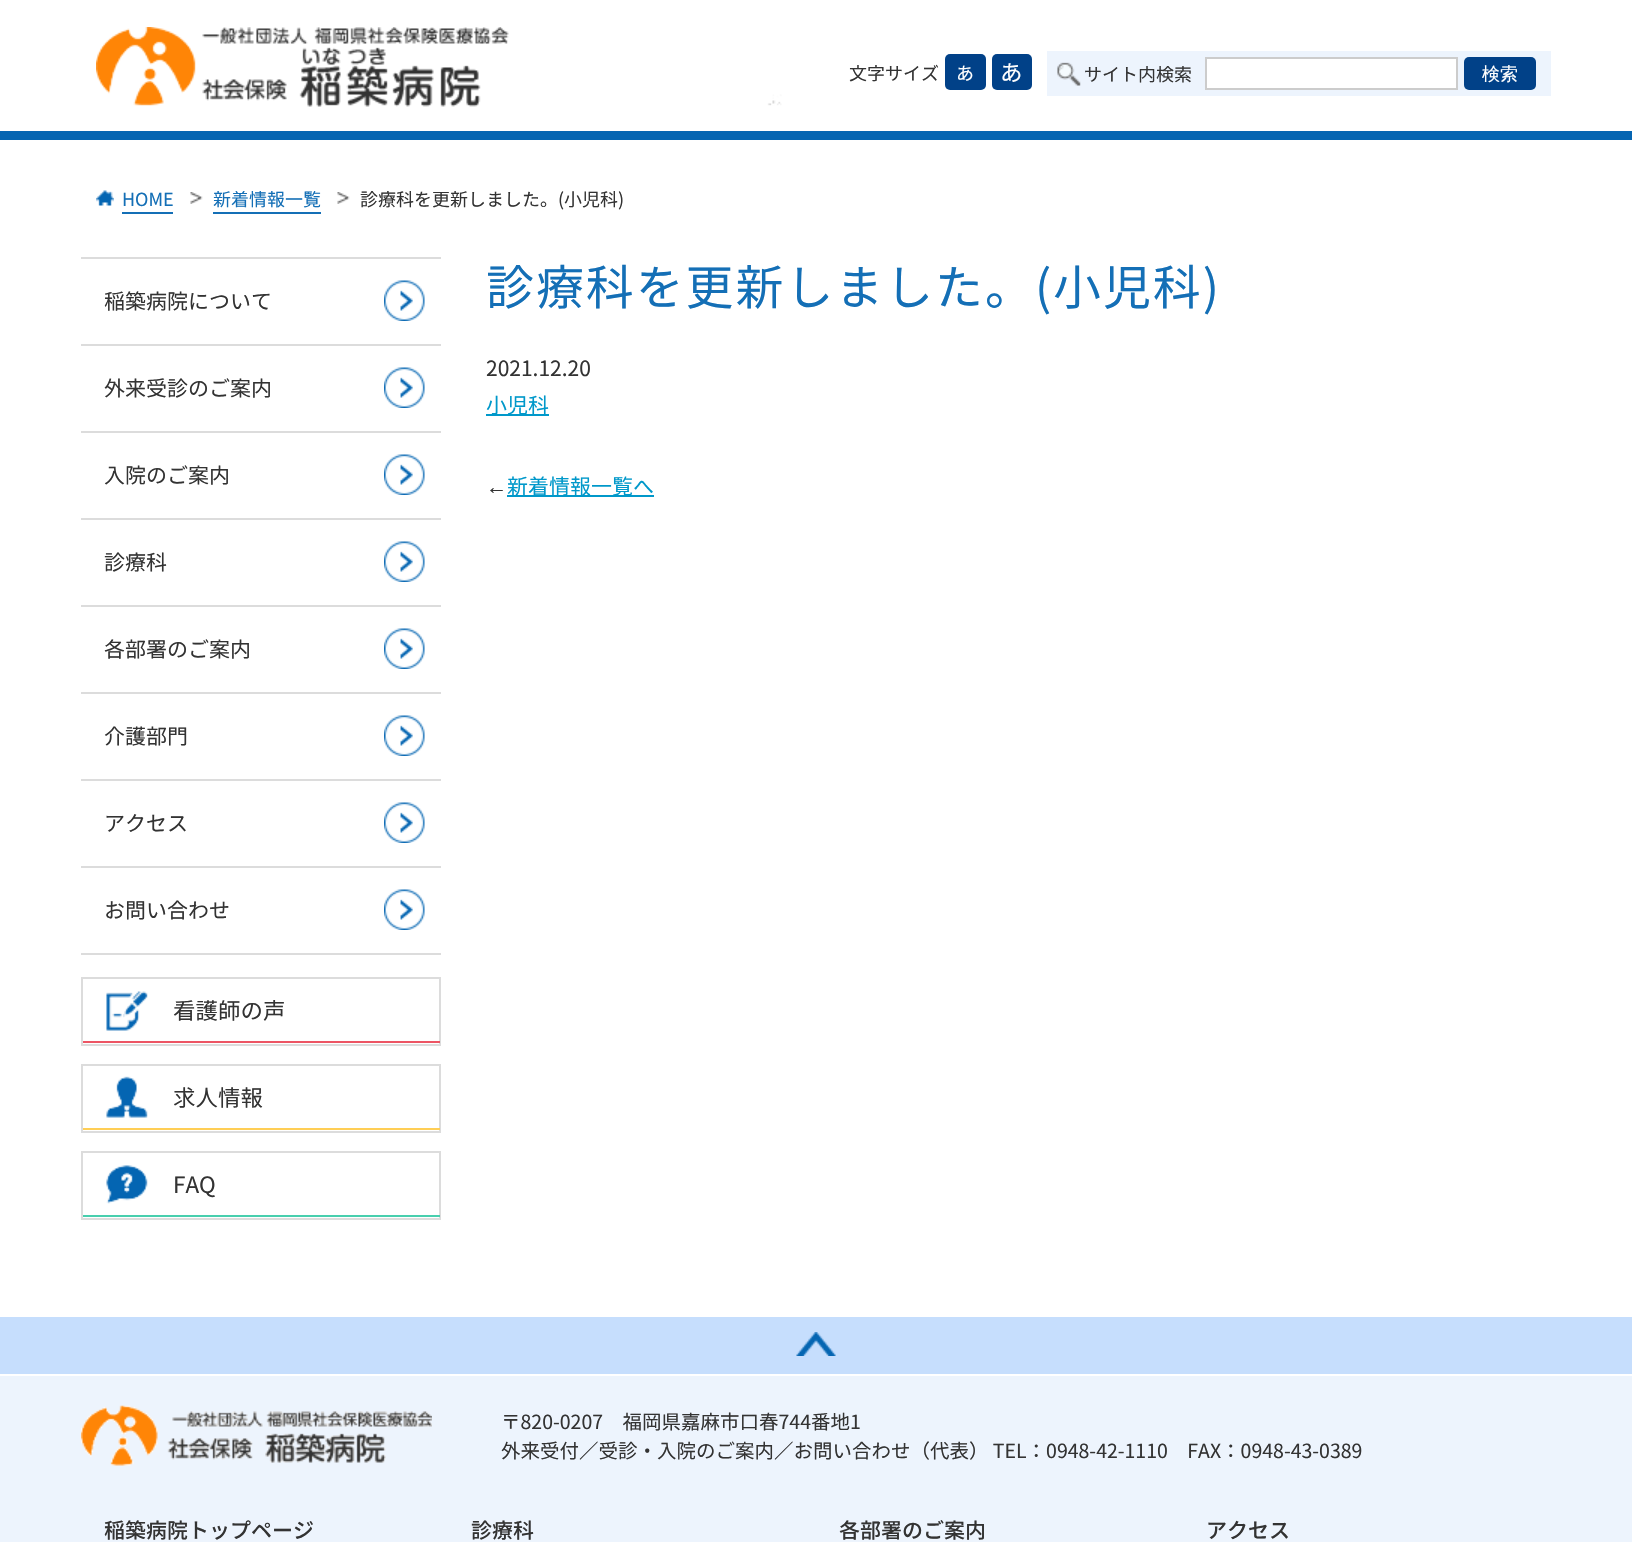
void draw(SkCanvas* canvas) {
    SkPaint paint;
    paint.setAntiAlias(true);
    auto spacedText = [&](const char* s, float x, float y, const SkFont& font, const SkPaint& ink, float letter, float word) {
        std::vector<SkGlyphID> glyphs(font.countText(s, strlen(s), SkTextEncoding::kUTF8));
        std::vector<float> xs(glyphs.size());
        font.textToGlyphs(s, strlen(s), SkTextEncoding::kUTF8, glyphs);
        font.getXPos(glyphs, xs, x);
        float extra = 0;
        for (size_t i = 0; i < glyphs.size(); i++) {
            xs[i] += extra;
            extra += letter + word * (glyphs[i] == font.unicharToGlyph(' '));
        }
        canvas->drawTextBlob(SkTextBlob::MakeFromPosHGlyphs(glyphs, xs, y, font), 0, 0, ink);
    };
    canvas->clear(0xFFFFFFFF);
    canvas->drawImageRect(SkImages::DeferredFromEncodedData(SkData::MakeFromFileName("img1.png")), SkRect::MakeXYWH(96, 27, 686, 80), SkSamplingOptions());
    SkFont font1(fontMgr->matchFamilyStyle("Noto Sans JP", SkFontStyle::Normal()), 18);
    font1.setSubpixel(true);
    paint.setColor(0xFF333333);
    canvas->drawString("文字サイズ", 849, 80, font1, paint);
    paint.setColor(0xFF014188);
    canvas->drawRoundRect(SkRect::MakeXYWH(945, 54, 41, 36), 5, 5, paint);
    paint.setColor(0xFFFFFFFF);
    canvas->drawString("あ", 956, 80, font1, paint);
    paint.setColor(0xFF014188);
    canvas->drawRoundRect(SkRect::MakeXYWH(992, 54, 40, 36), 5, 5, paint);
    SkFont font2(fontMgr->matchFamilyStyle("Noto Sans JP", SkFontStyle::Normal()), 22.5f);
    font2.setSubpixel(true);
    paint.setColor(0xFFFFFFFF);
    canvas->drawString("あ", 1000, 81, font2, paint);
    paint.setColor(0xFFEDF4FD);
    canvas->drawRect(SkRect::MakeXYWH(1047, 51, 504, 45), paint);
    canvas->drawImageRect(SkImages::DeferredFromEncodedData(SkData::MakeFromFileName("img2.png")), SkRect::MakeXYWH(1057, 62, 24, 24), SkSamplingOptions());
    paint.setColor(0xFF333333);
    canvas->drawString("サイト内検索", 1084, 81, font1, paint);
    paint.setColor(0xFFFFFFFF);
    canvas->drawRect(SkRect::MakeXYWH(1206, 58, 251, 31), paint);
    paint.setStyle(SkPaint::kStroke_Style);
    paint.setStrokeWidth(2);
    paint.setColor(0xFFCCCCCC);
    canvas->drawRect(SkRect::MakeXYWH(1206, 58, 251, 31), paint);
    paint.setStyle(SkPaint::kFill_Style);
    paint.setColor(0xFF014188);
    canvas->drawRoundRect(SkRect::MakeXYWH(1464, 57, 72, 33), 5, 5, paint);
    SkFont font3(fontMgr->matchFamilyStyle("WenQuanYi Zen Hei", SkFontStyle(500, SkFontStyle::kNormal_Width, SkFontStyle::kUpright_Slant)), 18);
    font3.setSubpixel(true);
    paint.setColor(0xFFFFFFFF);
    canvas->drawString("検索", 1482, 80, font3, paint);
    paint.setColor(0xFF0565B2);
    canvas->drawRect(SkRect::MakeXYWH(0, 131, 1632, 9), paint);
    canvas->drawImageRect(SkImages::DeferredFromEncodedData(SkData::MakeFromFileName("img3.png")), SkRect::MakeXYWH(96, 190, 18, 16), SkSamplingOptions());
    paint.setColor(0xFF146FB6);
    canvas->drawString("HOME", 122, 206, font1, paint);
    canvas->drawRect(SkRect::MakeXYWH(122, 212, 51, 2), paint);
    canvas->drawImageRect(SkImages::DeferredFromEncodedData(SkData::MakeFromFileName("img4.png")), SkRect::MakeXYWH(190, 192, 13, 12), SkSamplingOptions());
    canvas->drawString("新着情報一覧", 213, 206, font1, paint);
    canvas->drawRect(SkRect::MakeXYWH(213, 212, 108, 2), paint);
    canvas->drawImageRect(SkImages::DeferredFromEncodedData(SkData::MakeFromFileName("img4.png")), SkRect::MakeXYWH(337, 192, 13, 12), SkSamplingOptions());
    paint.setColor(0xFF333333);
    canvas->drawString("診療科を更新しました。(小児科)", 360, 206, font1, paint);
    paint.setColor(0xFFDCDCDC);
    canvas->drawRect(SkRect::MakeXYWH(81, 257, 360, 2), paint);
    canvas->drawRect(SkRect::MakeXYWH(81, 344, 360, 2), paint);
    canvas->drawImageRect(SkImages::DeferredFromEncodedData(SkData::MakeFromFileName("img5.png")), SkRect::MakeXYWH(384, 280, 41, 41), SkSamplingOptions());
    SkFont font4(fontMgr->matchFamilyStyle("Noto Sans JP", SkFontStyle::Normal()), 21);
    font4.setSubpixel(true);
    paint.setColor(0xFF333333);
    canvas->drawString("稲築病院について", 104, 309, font4, paint);
    paint.setColor(0xFFDCDCDC);
    canvas->drawRect(SkRect::MakeXYWH(81, 431, 360, 2), paint);
    canvas->drawImageRect(SkImages::DeferredFromEncodedData(SkData::MakeFromFileName("img5.png")), SkRect::MakeXYWH(384, 367, 41, 41), SkSamplingOptions());
    paint.setColor(0xFF333333);
    canvas->drawString("外来受診のご案内", 104, 396, font4, paint);
    paint.setColor(0xFFDCDCDC);
    canvas->drawRect(SkRect::MakeXYWH(81, 518, 360, 2), paint);
    canvas->drawImageRect(SkImages::DeferredFromEncodedData(SkData::MakeFromFileName("img5.png")), SkRect::MakeXYWH(384, 454, 41, 41), SkSamplingOptions());
    paint.setColor(0xFF333333);
    canvas->drawString("入院のご案内", 104, 483, font4, paint);
    paint.setColor(0xFFDCDCDC);
    canvas->drawRect(SkRect::MakeXYWH(81, 605, 360, 2), paint);
    canvas->drawImageRect(SkImages::DeferredFromEncodedData(SkData::MakeFromFileName("img5.png")), SkRect::MakeXYWH(384, 541, 41, 41), SkSamplingOptions());
    paint.setColor(0xFF333333);
    canvas->drawString("診療科", 104, 570, font4, paint);
    paint.setColor(0xFFDCDCDC);
    canvas->drawRect(SkRect::MakeXYWH(81, 692, 360, 2), paint);
    canvas->drawImageRect(SkImages::DeferredFromEncodedData(SkData::MakeFromFileName("img5.png")), SkRect::MakeXYWH(384, 628, 41, 41), SkSamplingOptions());
    paint.setColor(0xFF333333);
    canvas->drawString("各部署のご案内", 104, 657, font4, paint);
    paint.setColor(0xFFDCDCDC);
    canvas->drawRect(SkRect::MakeXYWH(81, 779, 360, 2), paint);
    canvas->drawImageRect(SkImages::DeferredFromEncodedData(SkData::MakeFromFileName("img5.png")), SkRect::MakeXYWH(384, 715, 41, 41), SkSamplingOptions());
    paint.setColor(0xFF333333);
    canvas->drawString("介護部門", 104, 744, font4, paint);
    paint.setColor(0xFFDCDCDC);
    canvas->drawRect(SkRect::MakeXYWH(81, 866, 360, 2), paint);
    canvas->drawImageRect(SkImages::DeferredFromEncodedData(SkData::MakeFromFileName("img5.png")), SkRect::MakeXYWH(384, 802, 41, 41), SkSamplingOptions());
    paint.setColor(0xFF333333);
    canvas->drawString("アクセス", 104, 831, font4, paint);
    paint.setColor(0xFFDCDCDC);
    canvas->drawRect(SkRect::MakeXYWH(81, 953, 360, 2), paint);
    canvas->drawImageRect(SkImages::DeferredFromEncodedData(SkData::MakeFromFileName("img5.png")), SkRect::MakeXYWH(384, 889, 41, 41), SkSamplingOptions());
    paint.setColor(0xFF333333);
    canvas->drawString("お問い合わせ", 104, 918, font4, paint);
    paint.setStyle(SkPaint::kStroke_Style);
    paint.setColor(0xFFDCDCDC);
    canvas->drawRect(SkRect::MakeXYWH(82, 978, 358, 67), paint);
    canvas->drawImageRect(SkImages::DeferredFromEncodedData(SkData::MakeFromFileName("img6.png")), SkRect::MakeXYWH(106, 991, 42, 40), SkSamplingOptions());
    paint.setStyle(SkPaint::kFill_Style);
    paint.setColor(0xFFED5564);
    canvas->drawRect(SkRect::MakeXYWH(83, 1041, 357, 2), paint);
    paint.setColor(0xFF333333);
    canvas->drawString("看護師の声", 173, 1019, font2, paint);
    paint.setStyle(SkPaint::kStroke_Style);
    paint.setColor(0xFFDCDCDC);
    canvas->drawRect(SkRect::MakeXYWH(82, 1065, 358, 67), paint);
    canvas->drawImageRect(SkImages::DeferredFromEncodedData(SkData::MakeFromFileName("img7.png")), SkRect::MakeXYWH(106, 1076, 42, 42), SkSamplingOptions());
    paint.setStyle(SkPaint::kFill_Style);
    paint.setColor(0xFFFFCE55);
    canvas->drawRect(SkRect::MakeXYWH(83, 1128, 357, 2), paint);
    paint.setColor(0xFF333333);
    canvas->drawString("求人情報", 173, 1106, font2, paint);
    paint.setStyle(SkPaint::kStroke_Style);
    paint.setColor(0xFFDCDCDC);
    canvas->drawRect(SkRect::MakeXYWH(82, 1152, 358, 67), paint);
    canvas->drawImageRect(SkImages::DeferredFromEncodedData(SkData::MakeFromFileName("img8.png")), SkRect::MakeXYWH(106, 1165, 42, 39), SkSamplingOptions());
    paint.setStyle(SkPaint::kFill_Style);
    paint.setColor(0xFF48CFAE);
    canvas->drawRect(SkRect::MakeXYWH(83, 1215, 357, 2), paint);
    paint.setColor(0xFF333333);
    canvas->drawString("FAQ", 173, 1193, font2, paint);
    SkFont font5(fontMgr->matchFamilyStyle("Noto Sans JP", SkFontStyle::Normal()), 48);
    font5.setSubpixel(true);
    paint.setColor(0xFF146FB6);
    spacedText("診療科を更新しました。(小児科)", 486, 305, font5, paint, 1.9f, 0);
    paint.setColor(0xFF333333);
    canvas->drawString("2021.12.20", 486, 376, font4, paint);
    paint.setColor(0xFF0098CA);
    canvas->drawRect(SkRect::MakeXYWH(486, 414, 63, 2), paint);
    canvas->drawString("小児科", 486, 413, font4, paint);
    SkFont font6(fontMgr->matchFamilyStyle("Liberation Sans", SkFontStyle::Normal()), 21);
    font6.setSubpixel(true);
    paint.setColor(0xFF333333);
    canvas->drawString("←", 486, 494, font6, paint);
    paint.setColor(0xFF0098CA);
    canvas->drawRect(SkRect::MakeXYWH(507, 495, 147, 2), paint);
    canvas->drawString("新着情報一覧へ", 507, 494, font4, paint);
    paint.setColor(0xFFEDF4FD);
    canvas->drawRect(SkRect::MakeXYWH(0, 1376, 1632, 166), paint);
    paint.setColor(0xFFC6DEFD);
    canvas->drawRect(SkRect::MakeXYWH(0, 1317, 1632, 57), paint);
    canvas->drawImageRect(SkImages::DeferredFromEncodedData(SkData::MakeFromFileName("img9.png")), SkRect::MakeXYWH(796, 1332, 40, 24), SkSamplingOptions());
    canvas->drawImageRect(SkImages::DeferredFromEncodedData(SkData::MakeFromFileName("img10.png")), SkRect::MakeXYWH(81, 1405, 351, 61), SkSamplingOptions());
    SkFont font7(fontMgr->matchFamilyStyle("Noto Sans JP", SkFontStyle::Normal()), 19.5f);
    font7.setSubpixel(true);
    paint.setColor(0xFF333333);
    canvas->drawString("〒820-0207　福岡県嘉麻市口春744番地1", 501, 1429, font7, paint);
    canvas->drawString("外来受付／受診・入院のご案内／お問い合わせ（代表） TEL：0948-42-1110　FAX：0948-43-0389", 501, 1458, font7, paint);
    SkFont font8(fontMgr->matchFamilyStyle("Noto Sans JP", SkFontStyle(500, SkFontStyle::kNormal_Width, SkFontStyle::kUpright_Slant)), 21);
    font8.setSubpixel(true);
    canvas->drawString("稲築病院トップページ", 104, 1538, font8, paint);
    canvas->drawString("診療科", 471, 1538, font8, paint);
    canvas->drawString("各部署のご案内", 839, 1538, font8, paint);
    canvas->drawString("アクセス", 1206, 1538, font8, paint);
}
